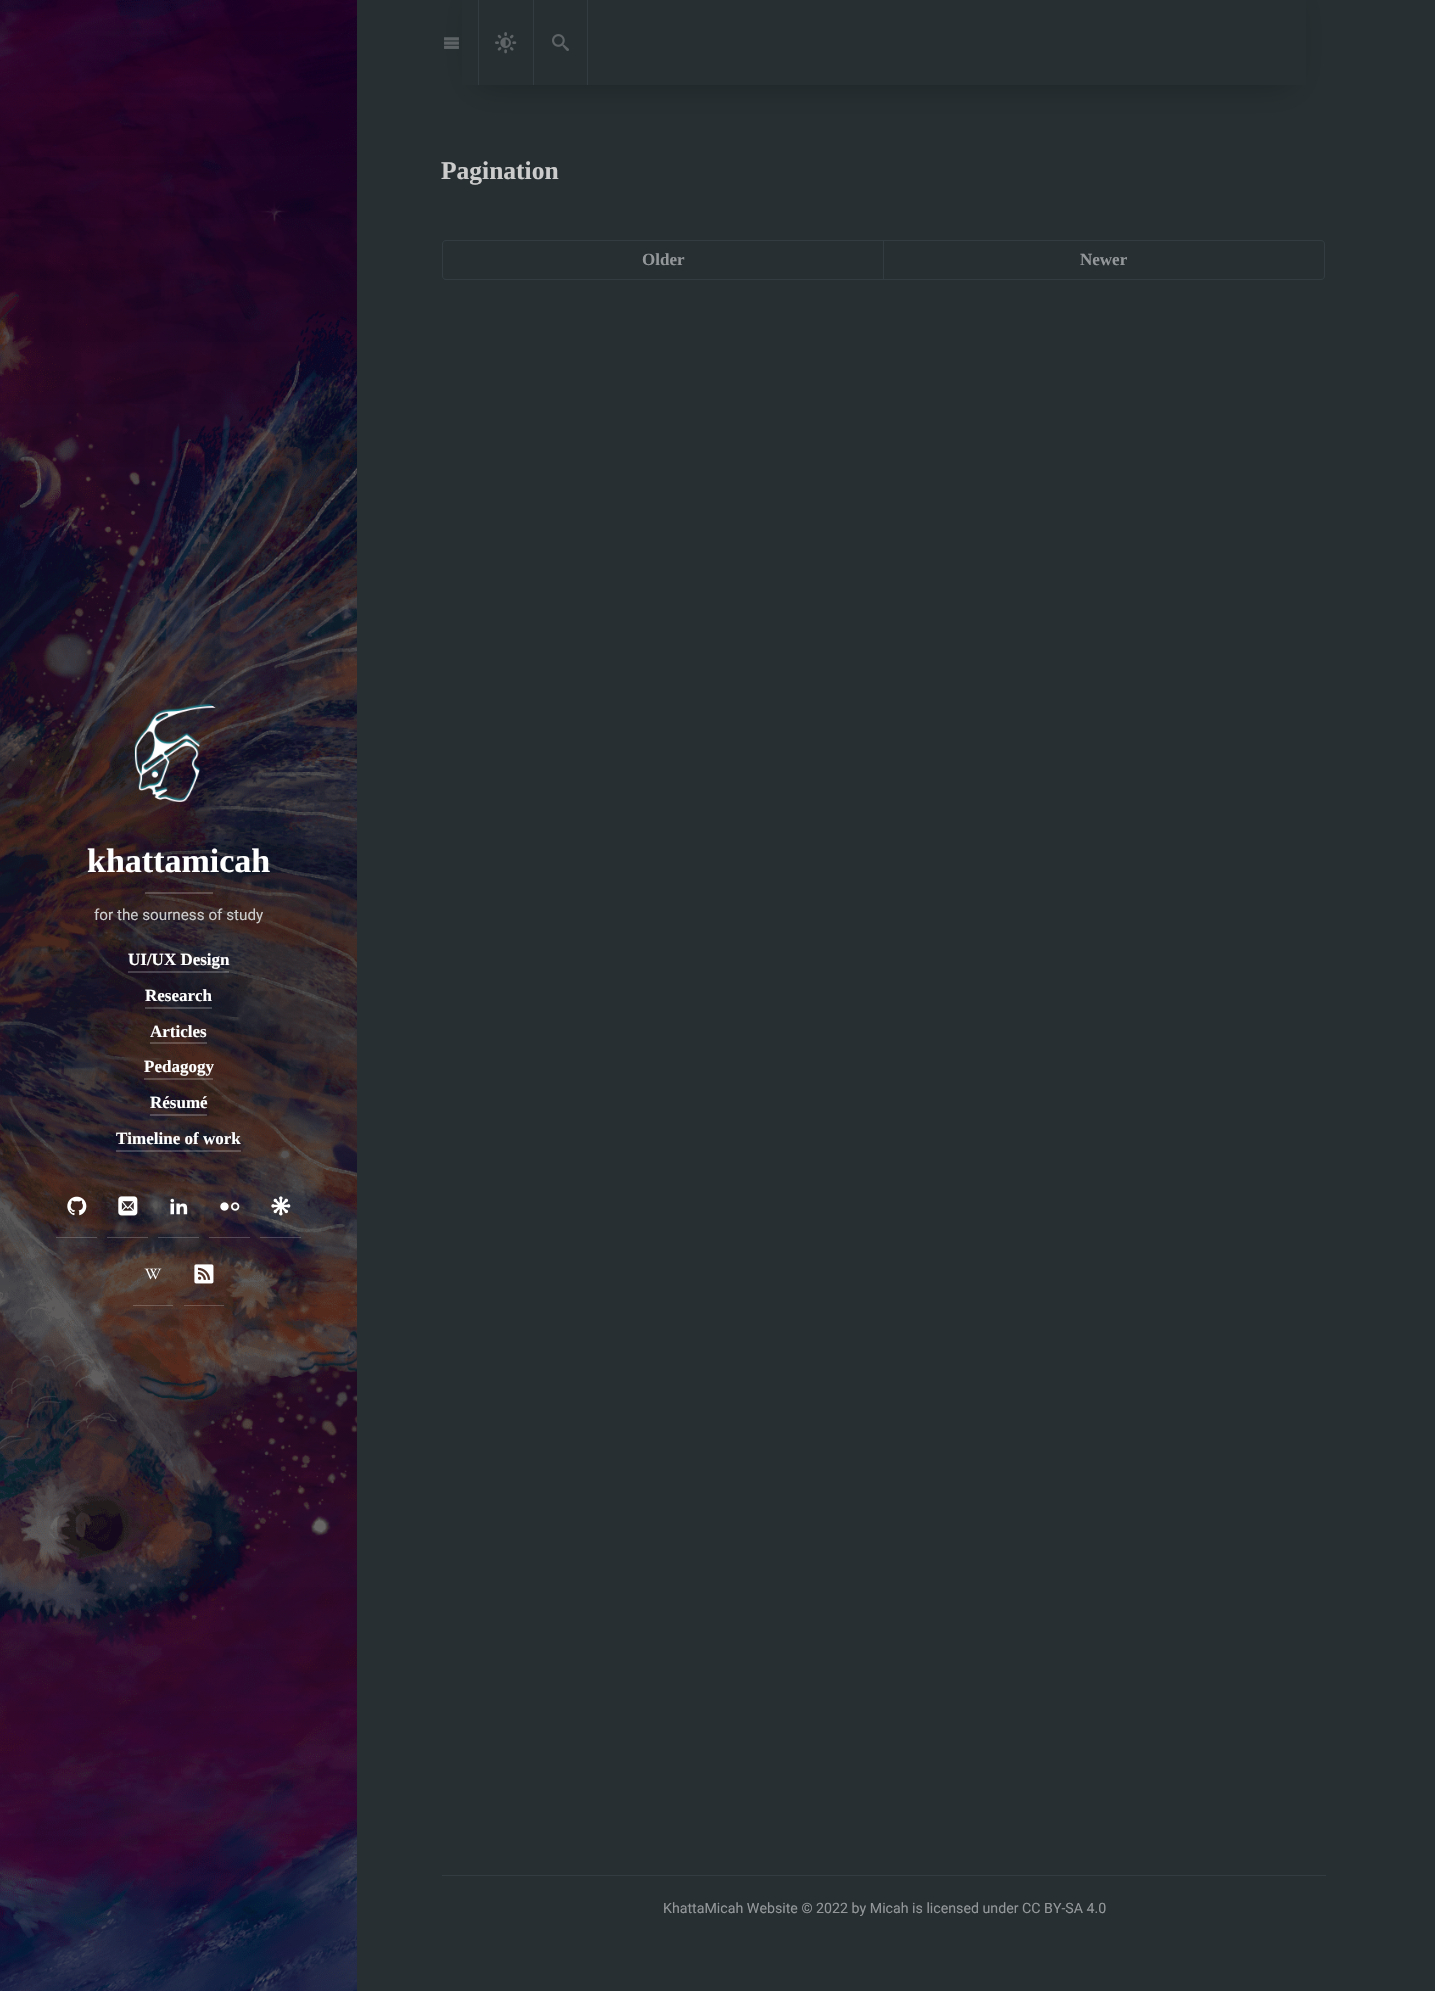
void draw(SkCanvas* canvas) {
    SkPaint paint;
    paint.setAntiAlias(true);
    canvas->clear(0xFF272F32);
    paint.setColor(0x40000000);
    paint.setMaskFilter(SkMaskFilter::MakeBlur(kNormal_SkBlurStyle, 17));
    canvas->drawRect(SkRect::MakeXYWH(476, -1, 816, 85), paint);
    paint.setMaskFilter(nullptr);
    paint.setColor(0xFF272F32);
    canvas->drawRect(SkRect::MakeXYWH(462, 0, 844, 85), paint);
    canvas->drawImageRect(SkImages::DeferredFromEncodedData(SkData::MakeFromFileName("img1.png")), SkRect::MakeXYWH(444, 37, 15, 12), SkSamplingOptions());
    paint.setColor(0xFF323C41);
    canvas->drawRect(SkRect::MakeXYWH(533, 0, 1, 85), paint);
    canvas->drawRect(SkRect::MakeXYWH(478, 0, 1, 85), paint);
    canvas->drawImageRect(SkImages::DeferredFromEncodedData(SkData::MakeFromFileName("img2.png")), SkRect::MakeXYWH(495, 32, 22, 22), SkSamplingOptions());
    canvas->drawRect(SkRect::MakeXYWH(587, 0, 1, 85), paint);
    canvas->drawImageRect(SkImages::DeferredFromEncodedData(SkData::MakeFromFileName("img3.png")), SkRect::MakeXYWH(552, 34, 17, 17), SkSamplingOptions());
    canvas->drawImageRect(SkImages::DeferredFromEncodedData(SkData::MakeFromFileName("img4.png")), SkRect::MakeXYWH(0, 0, 357, 1991), SkSamplingOptions());
    canvas->drawImageRect(SkImages::DeferredFromEncodedData(SkData::MakeFromFileName("img5.png")), SkRect::MakeXYWH(134, 703, 82, 99), SkSamplingOptions());
    SkFont font1(fontMgr->matchFamilyStyle("Liberation Serif", SkFontStyle::Bold()), 34);
    font1.setSubpixel(true);
    paint.setColor(0xFFFFFFFF);
    canvas->drawString("khattamicah", 87, 872, font1, paint);
    paint.setColor(0x33FFFFFF);
    canvas->drawRect(SkRect::MakeXYWH(145, 892, 68, 2), paint);
    SkFont font2(fontMgr->matchFamilyStyle("Roboto", SkFontStyle::Normal()), 15.25f);
    font2.setSubpixel(true);
    paint.setColor(0xFFCCCCCC);
    canvas->drawString("for the sourness of study", 94, 920, font2, paint);
    SkFont font3(fontMgr->matchFamilyStyle("Liberation Serif", SkFontStyle::Bold()), 17);
    font3.setSubpixel(true);
    paint.setColor(0xFFFFFFFF);
    canvas->drawString("UI/UX Design", 128, 965, font3, paint);
    paint.setColor(0x33FFFFFF);
    canvas->drawRect(SkRect::MakeXYWH(128, 971, 101, 2), paint);
    paint.setColor(0xFFFFFFFF);
    canvas->drawString("Research", 145, 1001, font3, paint);
    paint.setColor(0x33FFFFFF);
    canvas->drawRect(SkRect::MakeXYWH(145, 1007, 67, 2), paint);
    paint.setColor(0xFFFFFFFF);
    canvas->drawString("Articles", 150, 1037, font3, paint);
    paint.setColor(0x33FFFFFF);
    canvas->drawRect(SkRect::MakeXYWH(150, 1042, 57, 2), paint);
    paint.setColor(0xFFFFFFFF);
    canvas->drawString("Pedagogy", 144, 1072, font3, paint);
    paint.setColor(0x33FFFFFF);
    canvas->drawRect(SkRect::MakeXYWH(144, 1078, 69, 2), paint);
    paint.setColor(0xFFFFFFFF);
    canvas->drawString("Résumé", 150, 1108, font3, paint);
    paint.setColor(0x33FFFFFF);
    canvas->drawRect(SkRect::MakeXYWH(150, 1114, 57, 2), paint);
    paint.setColor(0xFFFFFFFF);
    canvas->drawString("Timeline of work", 116, 1144, font3, paint);
    paint.setColor(0x33FFFFFF);
    canvas->drawRect(SkRect::MakeXYWH(116, 1150, 125, 2), paint);
    canvas->drawRect(SkRect::MakeXYWH(56, 1237, 41, 1), paint);
    canvas->drawImageRect(SkImages::DeferredFromEncodedData(SkData::MakeFromFileName("img6.png")), SkRect::MakeXYWH(67, 1196, 20, 20), SkSamplingOptions());
    canvas->drawRect(SkRect::MakeXYWH(107, 1237, 41, 1), paint);
    canvas->drawImageRect(SkImages::DeferredFromEncodedData(SkData::MakeFromFileName("img7.png")), SkRect::MakeXYWH(118, 1196, 20, 20), SkSamplingOptions());
    canvas->drawRect(SkRect::MakeXYWH(158, 1237, 41, 1), paint);
    canvas->drawImageRect(SkImages::DeferredFromEncodedData(SkData::MakeFromFileName("img8.png")), SkRect::MakeXYWH(170, 1198, 18, 17), SkSamplingOptions());
    canvas->drawRect(SkRect::MakeXYWH(209, 1237, 41, 1), paint);
    canvas->drawImageRect(SkImages::DeferredFromEncodedData(SkData::MakeFromFileName("img9.png")), SkRect::MakeXYWH(220, 1202, 20, 9), SkSamplingOptions());
    canvas->drawRect(SkRect::MakeXYWH(260, 1237, 41, 1), paint);
    canvas->drawImageRect(SkImages::DeferredFromEncodedData(SkData::MakeFromFileName("img10.png")), SkRect::MakeXYWH(271, 1196, 20, 20), SkSamplingOptions());
    canvas->drawRect(SkRect::MakeXYWH(133, 1305, 40, 1), paint);
    canvas->drawImageRect(SkImages::DeferredFromEncodedData(SkData::MakeFromFileName("img11.png")), SkRect::MakeXYWH(144, 1268, 18, 12), SkSamplingOptions());
    canvas->drawRect(SkRect::MakeXYWH(184, 1305, 40, 1), paint);
    canvas->drawImageRect(SkImages::DeferredFromEncodedData(SkData::MakeFromFileName("img12.png")), SkRect::MakeXYWH(194, 1264, 20, 20), SkSamplingOptions());
    SkFont font4(fontMgr->matchFamilyStyle("Liberation Serif", SkFontStyle::Bold()), 25.5f);
    font4.setSubpixel(true);
    paint.setColor(0xFFCCCCCC);
    canvas->drawString("Pagination", 441, 179, font4, paint);
    paint.setStyle(SkPaint::kStroke_Style);
    paint.setStrokeWidth(1);
    paint.setColor(0xFF323C41);
    canvas->drawPath(SkPathBuilder().moveTo(446, 240.5f).lineTo(883.5f, 240.5f).lineTo(883.5f, 279.5f).lineTo(446, 279.5f).cubicTo(444, 279.5f, 442.5f, 278, 442.5f, 276).lineTo(442.5f, 244).cubicTo(442.5f, 242, 444, 240.5f, 446, 240.5f).close().detach(), paint);
    paint.setStyle(SkPaint::kFill_Style);
    paint.setColor(0xFF939799);
    canvas->drawString("Older", 642, 265, font3, paint);
    paint.setStyle(SkPaint::kStroke_Style);
    paint.setColor(0xFF323C41);
    canvas->drawPath(SkPathBuilder().moveTo(883.5f, 240.5f).lineTo(1321, 240.5f).cubicTo(1323, 240.5f, 1324.5f, 242, 1324.5f, 244).lineTo(1324.5f, 276).cubicTo(1324.5f, 278, 1323, 279.5f, 1321, 279.5f).lineTo(883.5f, 279.5f).close().detach(), paint);
    paint.setStyle(SkPaint::kFill_Style);
    paint.setColor(0xFF939799);
    canvas->drawString("Newer", 1080, 265, font3, paint);
    paint.setColor(0xFF323C41);
    canvas->drawRect(SkRect::MakeXYWH(442, 1875, 884, 1), paint);
    SkFont font5(fontMgr->matchFamilyStyle("Roboto", SkFontStyle::Normal()), 14.2f);
    font5.setSubpixel(true);
    paint.setColor(0xFF939799);
    canvas->drawString("KhattaMicah Website © 2022 by Micah is licensed under CC BY-SA 4.0", 663, 1913, font5, paint);
}
